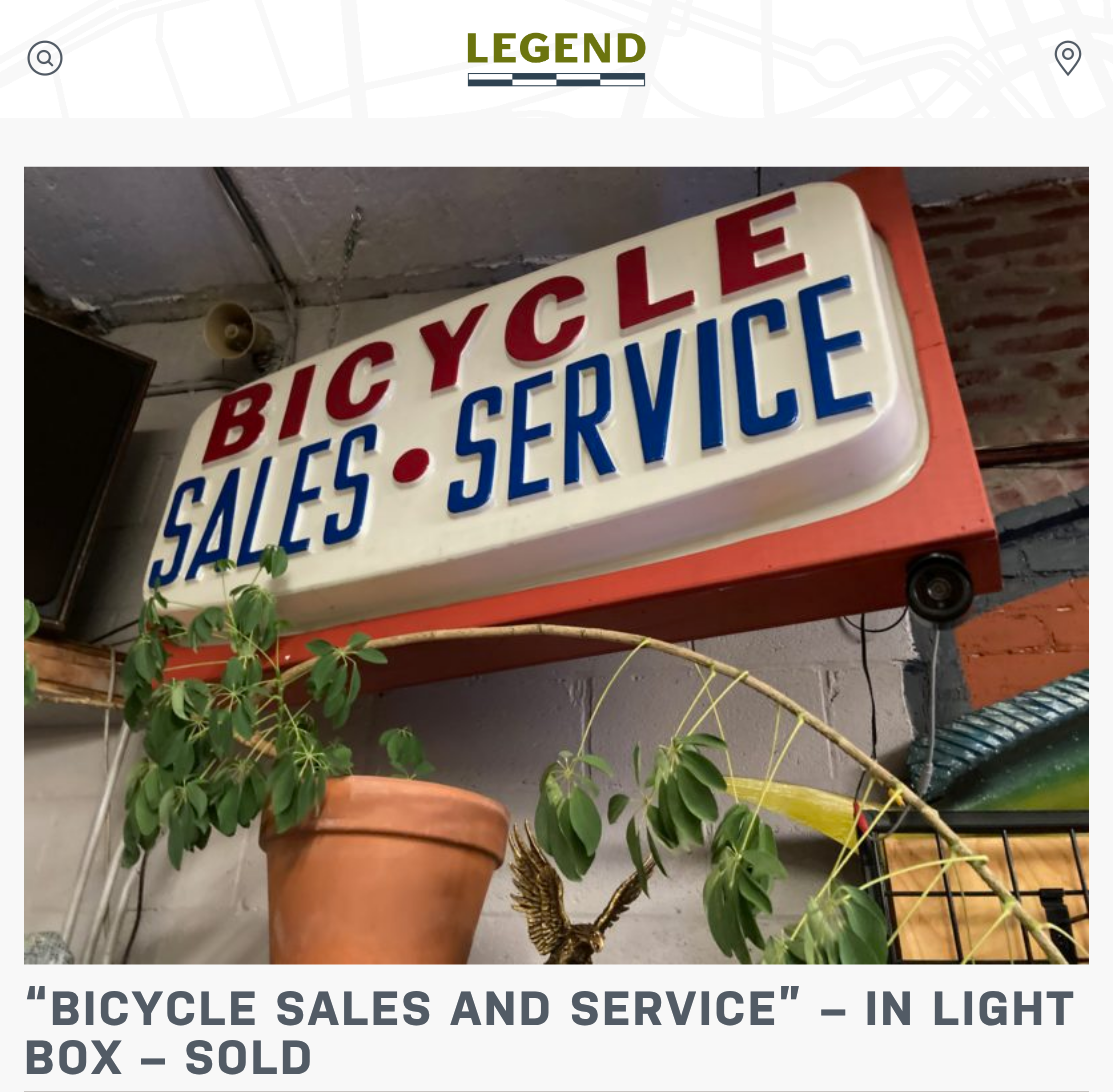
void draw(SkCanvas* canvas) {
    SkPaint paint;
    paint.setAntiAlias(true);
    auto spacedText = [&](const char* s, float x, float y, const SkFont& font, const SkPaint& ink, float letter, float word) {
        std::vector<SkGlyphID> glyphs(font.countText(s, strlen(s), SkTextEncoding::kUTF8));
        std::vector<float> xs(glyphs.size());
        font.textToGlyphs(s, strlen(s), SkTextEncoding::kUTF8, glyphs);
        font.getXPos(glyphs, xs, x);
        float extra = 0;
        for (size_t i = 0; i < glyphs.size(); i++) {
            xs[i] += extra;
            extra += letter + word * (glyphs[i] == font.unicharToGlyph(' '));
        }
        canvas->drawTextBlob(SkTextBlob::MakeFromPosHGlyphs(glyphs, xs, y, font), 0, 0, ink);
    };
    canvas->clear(0xFFF8F8F8);
    canvas->drawImageRect(SkImages::DeferredFromEncodedData(SkData::MakeFromFileName("img1.png")), SkRect::MakeXYWH(0, 0, 1113, 118), SkSamplingOptions());
    canvas->drawImageRect(SkImages::DeferredFromEncodedData(SkData::MakeFromFileName("img2.png")), SkRect::MakeXYWH(27, 40, 36, 36), SkSamplingOptions());
    canvas->drawImageRect(SkImages::DeferredFromEncodedData(SkData::MakeFromFileName("img3.png")), SkRect::MakeXYWH(467, 32, 179, 55), SkSamplingOptions());
    canvas->drawImageRect(SkImages::DeferredFromEncodedData(SkData::MakeFromFileName("img4.png")), SkRect::MakeXYWH(1054, 40, 28, 37), SkSamplingOptions());
    canvas->drawImageRect(SkImages::DeferredFromEncodedData(SkData::MakeFromFileName("img5.png")), SkRect::MakeXYWH(24, 166, 1065, 799), SkSamplingOptions());
    paint.setColor(0xFFC8C5C2);
    canvas->drawRect(SkRect::MakeXYWH(24, 1091, 1065, 1), paint);
    SkFont font1(fontMgr->matchFamilyStyle("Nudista", SkFontStyle::Bold()), 48);
    font1.setSubpixel(true);
    paint.setColor(0xFF525B65);
    spacedText("“BICYCLE SALES AND SERVICE” – IN LIGHT", 24, 1025, font1, paint, 2.4f, 0);
    spacedText("BOX – SOLD", 24, 1074, font1, paint, 2.4f, 0);
}
